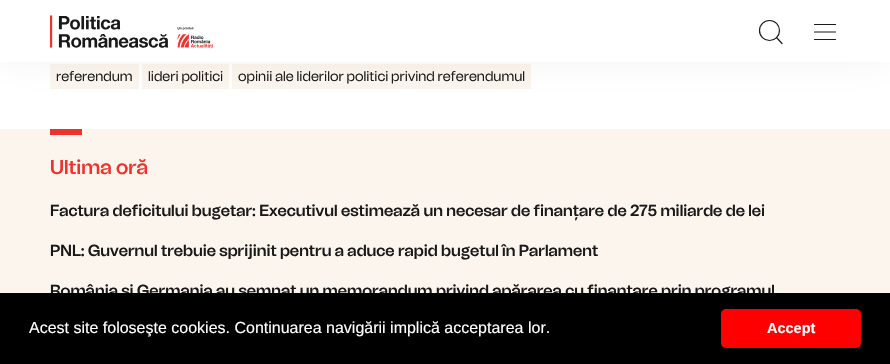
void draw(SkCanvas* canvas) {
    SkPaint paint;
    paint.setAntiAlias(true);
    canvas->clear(0xFFFFFFFF);
    paint.setColor(0xFFFBF5EE);
    canvas->drawRect(SkRect::MakeXYWH(50, 64, 89, 25), paint);
    canvas->drawRect(SkRect::MakeXYWH(142, 64, 87, 25), paint);
    canvas->drawRect(SkRect::MakeXYWH(232, 64, 299, 25), paint);
    paint.setColor(0x0D1A1919);
    paint.setMaskFilter(SkMaskFilter::MakeBlur(kNormal_SkBlurStyle, 20));
    canvas->drawRect(SkRect::MakeXYWH(0, -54, 890, 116), paint);
    paint.setMaskFilter(nullptr);
    paint.setColor(0xFFFFFFFF);
    canvas->drawRect(SkRect::MakeXYWH(0, 0, 890, 62), paint);
    canvas->drawImageRect(SkImages::DeferredFromEncodedData(SkData::MakeFromFileName("img1.png")), SkRect::MakeXYWH(50, 15, 163, 34), SkSamplingOptions());
    paint.setStyle(SkPaint::kStroke_Style);
    paint.setStrokeWidth(1.2f);
    paint.setColor(0xFF1A1919);
    canvas->drawCircle(769.5f, 30.5f, 10, paint);
    paint.setStrokeCap(SkPaint::kRound_Cap);
    paint.setStrokeJoin(SkPaint::kRound_Join);
    canvas->drawPath(SkPathBuilder().moveTo(776.5f, 37.5f).lineTo(782, 43.5f).moveTo(814.5f, 32).lineTo(835.5f, 32).moveTo(814.5f, 24.5f).lineTo(835.5f, 24.5f).moveTo(814.5f, 39.5f).lineTo(835.5f, 39.5f).detach(), paint);
    SkFont font1(fontMgr->matchFamilyStyle("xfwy", SkFontStyle::Normal()), 14);
    font1.setSubpixel(true);
    paint.setStyle(SkPaint::kFill_Style);
    canvas->drawString("referendum", 56, 81, font1, paint);
    canvas->drawString("lideri politici", 148, 81, font1, paint);
    canvas->drawString("opinii ale liderilor politici privind referendumul", 238, 81, font1, paint);
    paint.setColor(0xFFFBF5EE);
    canvas->drawRect(SkRect::MakeXYWH(0, 129, 890, 164), paint);
    paint.setColor(0xFFEE322D);
    canvas->drawRect(SkRect::MakeXYWH(50, 129, 32, 6), paint);
    SkFont font2(fontMgr->matchFamilyStyle("xfwy", SkFontStyle(600, SkFontStyle::kNormal_Width, SkFontStyle::kUpright_Slant)), 20);
    font2.setSubpixel(true);
    canvas->drawString("Ultima oră", 50, 174, font2, paint);
    SkFont font3(fontMgr->matchFamilyStyle("xfwy", SkFontStyle(600, SkFontStyle::kNormal_Width, SkFontStyle::kUpright_Slant)), 16);
    font3.setSubpixel(true);
    paint.setColor(0xFF1A1919);
    canvas->drawString("Factura deficitului bugetar: Executivul estimează un necesar de finanțare de 275 miliarde de lei", 50, 216, font3, paint);
    canvas->drawString("PNL: Guvernul trebuie sprijinit pentru a aduce rapid bugetul în Parlament", 50, 256, font3, paint);
    canvas->drawString("România și Germania au semnat un memorandum privind apărarea cu finanţare prin programul", 50, 296, font3, paint);
    paint.setColor(0xFF000000);
    canvas->drawRect(SkRect::MakeXYWH(0, 293, 890, 71), paint);
    SkFont font4(fontMgr->matchFamilyStyle("Liberation Sans", SkFontStyle::Normal()), 16);
    font4.setSubpixel(true);
    paint.setColor(0xFFFFFFFF);
    canvas->drawString("Acest site foloseşte cookies. Continuarea navigării implică acceptarea lor.", 29, 333, font4, paint);
    paint.setColor(0xFFFF0000);
    canvas->drawRoundRect(SkRect::MakeXYWH(721, 309, 140, 39), 5, 5, paint);
    SkFont font5(fontMgr->matchFamilyStyle("Liberation Sans", SkFontStyle::Bold()), 14.5f);
    font5.setSubpixel(true);
    paint.setColor(0xFFFFFFFF);
    canvas->drawString("Accept", 767, 333, font5, paint);
}
